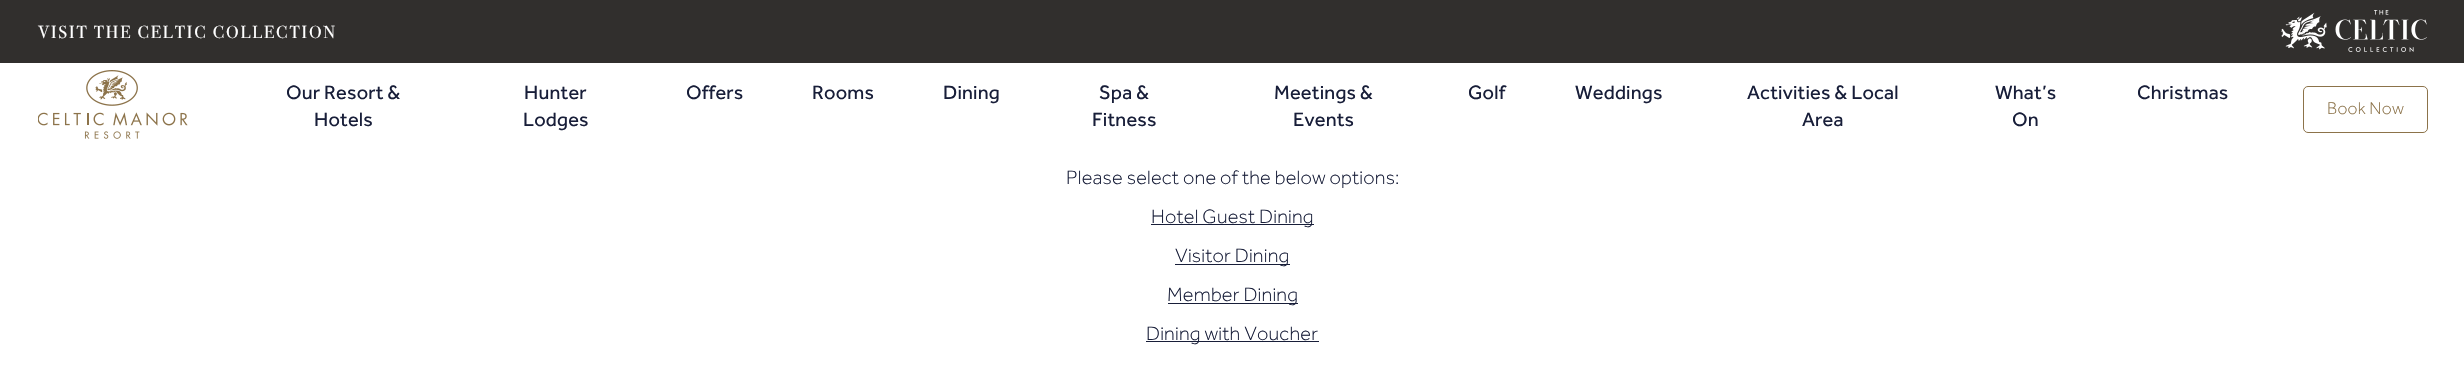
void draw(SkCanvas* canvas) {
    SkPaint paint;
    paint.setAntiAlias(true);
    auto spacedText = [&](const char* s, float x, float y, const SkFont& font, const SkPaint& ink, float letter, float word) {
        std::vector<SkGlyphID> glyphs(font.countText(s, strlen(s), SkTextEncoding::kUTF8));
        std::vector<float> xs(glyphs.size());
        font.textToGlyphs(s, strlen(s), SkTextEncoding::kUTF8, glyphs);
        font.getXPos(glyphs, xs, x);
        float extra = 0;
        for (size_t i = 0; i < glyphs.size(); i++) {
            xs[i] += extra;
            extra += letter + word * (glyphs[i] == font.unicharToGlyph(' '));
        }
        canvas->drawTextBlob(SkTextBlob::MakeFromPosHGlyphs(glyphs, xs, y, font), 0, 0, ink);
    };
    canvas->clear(0xFFFFFFFF);
    paint.setColor(0xFF312F2D);
    canvas->drawRect(SkRect::MakeXYWH(0, 0, 2464, 63), paint);
    SkFont font1(fontMgr->matchFamilyStyle("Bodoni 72", SkFontStyle::Normal()), 17.5f);
    font1.setSubpixel(true);
    paint.setColor(0xFFFFFFFF);
    spacedText("VISIT THE CELTIC COLLECTION", 38, 38, font1, paint, 1.9f, 0);
    canvas->drawImageRect(SkImages::DeferredFromEncodedData(SkData::MakeFromFileName("img1.png")), SkRect::MakeXYWH(2281, 10, 146, 42), SkSamplingOptions());
    canvas->drawImageRect(SkImages::DeferredFromEncodedData(SkData::MakeFromFileName("img2.png")), SkRect::MakeXYWH(38, 70, 150, 69), SkSamplingOptions());
    SkFont font2(fontMgr->matchFamilyStyle("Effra", SkFontStyle::Normal()), 20);
    font2.setSubpixel(true);
    paint.setColor(0xFF181E39);
    spacedText("Our Resort &", 286, 99, font2, paint, 0.2f, 0);
    spacedText("Hotels", 314, 126, font2, paint, 0.2f, 0);
    spacedText("Hunter", 524, 99, font2, paint, 0.2f, 0);
    spacedText("Lodges", 523, 126, font2, paint, 0.2f, 0);
    spacedText("Offers", 686, 99, font2, paint, 0.2f, 0);
    spacedText("Rooms", 812, 99, font2, paint, 0.2f, 0);
    spacedText("Dining", 943, 99, font2, paint, 0.2f, 0);
    spacedText("Spa &", 1099, 99, font2, paint, 0.2f, 0);
    spacedText("Fitness", 1092, 126, font2, paint, 0.2f, 0);
    spacedText("Meetings &", 1274, 99, font2, paint, 0.2f, 0);
    spacedText("Events", 1293, 126, font2, paint, 0.2f, 0);
    spacedText("Golf", 1468, 99, font2, paint, 0.2f, 0);
    spacedText("Weddings", 1575, 99, font2, paint, 0.2f, 0);
    spacedText("Activities & Local", 1747, 99, font2, paint, 0.2f, 0);
    spacedText("Area", 1802, 126, font2, paint, 0.2f, 0);
    spacedText("What’s", 1995, 99, font2, paint, 0.2f, 0);
    spacedText("On", 2012, 126, font2, paint, 0.2f, 0);
    spacedText("Christmas", 2137, 99, font2, paint, 0.2f, 0);
    paint.setStyle(SkPaint::kStroke_Style);
    paint.setStrokeWidth(1);
    paint.setColor(0xFF8C734A);
    canvas->drawRoundRect(SkRect::MakeXYWH(2303.5f, 86.5f, 124, 46), 4.5f, 4.5f, paint);
    SkFont font3(fontMgr->matchFamilyStyle("Effra", SkFontStyle(300, SkFontStyle::kNormal_Width, SkFontStyle::kUpright_Slant)), 17.5f);
    font3.setSubpixel(true);
    paint.setStyle(SkPaint::kFill_Style);
    spacedText("Book Now", 2327, 114, font3, paint, 0.25f, 0);
    SkFont font4(fontMgr->matchFamilyStyle("Effra", SkFontStyle(300, SkFontStyle::kNormal_Width, SkFontStyle::kUpright_Slant)), 20);
    font4.setSubpixel(true);
    paint.setColor(0xFF181E39);
    spacedText("Please select one of the below options:", 1066, 184, font4, paint, 0.2f, 0);
    canvas->drawRect(SkRect::MakeXYWH(1151, 224, 163, 1), paint);
    spacedText("Hotel Guest Dining", 1151, 223, font4, paint, 0.2f, 0);
    canvas->drawRect(SkRect::MakeXYWH(1175, 264, 115, 1), paint);
    spacedText("Visitor Dining", 1175, 262, font4, paint, 0.2f, 0);
    canvas->drawRect(SkRect::MakeXYWH(1168, 303, 130, 1), paint);
    spacedText("Member Dining", 1167, 301, font4, paint, 0.2f, 0);
    canvas->drawRect(SkRect::MakeXYWH(1146, 341, 173, 1), paint);
    spacedText("Dining with Voucher", 1146, 340, font4, paint, 0.2f, 0);
}
